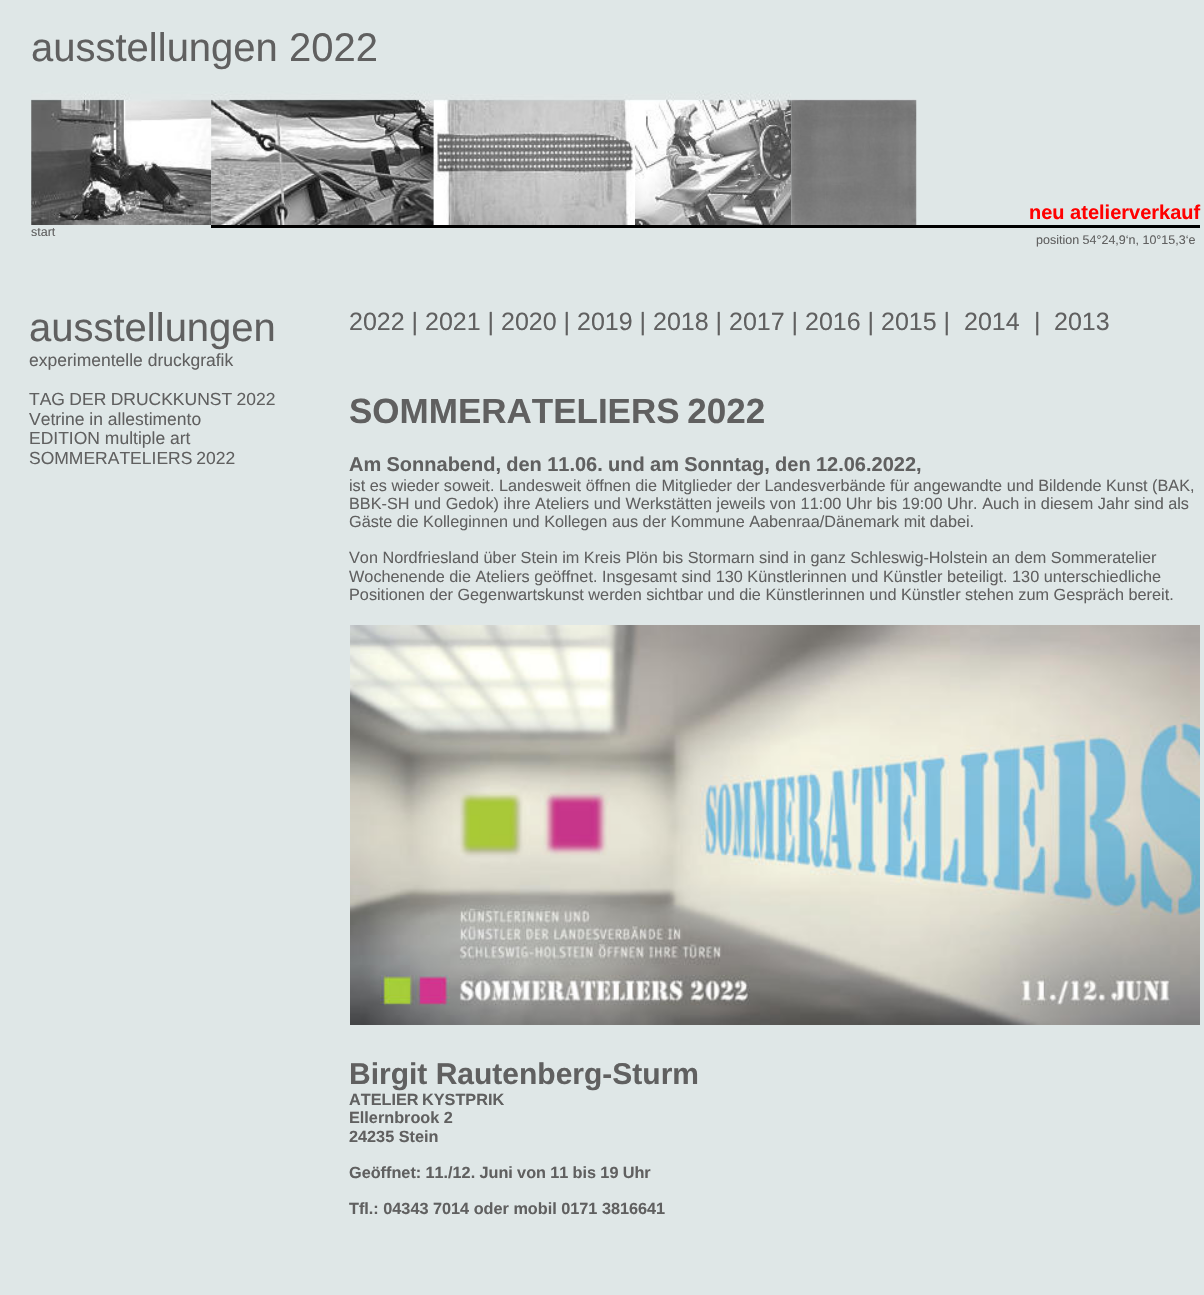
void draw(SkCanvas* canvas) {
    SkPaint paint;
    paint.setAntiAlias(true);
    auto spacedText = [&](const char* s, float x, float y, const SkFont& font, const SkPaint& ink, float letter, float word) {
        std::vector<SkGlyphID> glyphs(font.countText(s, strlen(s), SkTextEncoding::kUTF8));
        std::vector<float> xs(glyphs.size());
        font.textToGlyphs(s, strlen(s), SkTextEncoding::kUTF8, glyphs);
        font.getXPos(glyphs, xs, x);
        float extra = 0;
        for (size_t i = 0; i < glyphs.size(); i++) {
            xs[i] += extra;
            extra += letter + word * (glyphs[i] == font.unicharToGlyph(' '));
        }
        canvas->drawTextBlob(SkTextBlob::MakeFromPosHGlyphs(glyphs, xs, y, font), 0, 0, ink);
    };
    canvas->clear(0xFFDFE7E7);
    SkFont font1(fontMgr->matchFamilyStyle("Liberation Sans", SkFontStyle::Normal()), 40);
    font1.setSubpixel(true);
    paint.setColor(0xFF606060);
    canvas->drawString("ausstellungen 2022", 31, 61, font1, paint);
    canvas->drawImageRect(SkImages::DeferredFromEncodedData(SkData::MakeFromFileName("img1.png")), SkRect::MakeXYWH(31, 91, 181, 134), SkSamplingOptions());
    canvas->drawImageRect(SkImages::DeferredFromEncodedData(SkData::MakeFromFileName("img2.png")), SkRect::MakeXYWH(211, 91, 223, 134), SkSamplingOptions());
    canvas->drawImageRect(SkImages::DeferredFromEncodedData(SkData::MakeFromFileName("img3.png")), SkRect::MakeXYWH(433, 94, 202, 131), SkSamplingOptions());
    canvas->drawImageRect(SkImages::DeferredFromEncodedData(SkData::MakeFromFileName("img4.png")), SkRect::MakeXYWH(635, 91, 157, 134), SkSamplingOptions());
    canvas->drawImageRect(SkImages::DeferredFromEncodedData(SkData::MakeFromFileName("img5.png")), SkRect::MakeXYWH(791, 99, 126, 126), SkSamplingOptions());
    SkFont font2(fontMgr->matchFamilyStyle("Liberation Sans", SkFontStyle::Bold()), 20);
    font2.setSubpixel(true);
    paint.setColor(0xFFFF0000);
    canvas->drawString("neu atelierverkauf", 1029, 219, font2, paint);
    paint.setColor(0xFF000000);
    canvas->drawRect(SkRect::MakeXYWH(211, 225, 989, 3), paint);
    SkFont font3(fontMgr->matchFamilyStyle("Liberation Sans", SkFontStyle::Normal()), 12.5f);
    font3.setSubpixel(true);
    paint.setColor(0xFF606060);
    canvas->drawString("start", 31, 236, font3, paint);
    canvas->drawString("position 54°24,9‘n, 10°15,3‘e", 1036, 244, font3, paint);
    canvas->drawString("ausstellungen", 29, 341, font1, paint);
    SkFont font4(fontMgr->matchFamilyStyle("Liberation Sans", SkFontStyle::Normal()), 17.5f);
    font4.setSubpixel(true);
    canvas->drawString("experimentelle druckgrafik", 29, 366, font4, paint);
    spacedText("TAG DER DRUCKKUNST 2022", 29, 405, font4, paint, 0, -0.5f);
    canvas->drawString("Vetrine in allestimento", 29, 425, font4, paint);
    canvas->drawString("EDITION multiple art", 29, 444, font4, paint);
    spacedText("SOMMERATELIERS 2022", 29, 464, font4, paint, 0, -1);
    SkFont font5(fontMgr->matchFamilyStyle("Liberation Sans", SkFontStyle::Normal()), 25);
    font5.setSubpixel(true);
    canvas->drawString("2022 | 2021 | 2020 | 2019 | 2018 | 2017 | 2016 | 2015 |", 349, 330, font5, paint);
    canvas->drawString("2014", 964, 330, font5, paint);
    canvas->drawString("|", 1034, 330, font5, paint);
    canvas->drawString("2013", 1054, 330, font5, paint);
    SkFont font6(fontMgr->matchFamilyStyle("Liberation Sans", SkFontStyle::Bold()), 35);
    font6.setSubpixel(true);
    spacedText("SOMMERATELIERS 2022", 349, 423, font6, paint, 0, -2);
    spacedText("Am Sonnabend, den 11.06. und am Sonntag, den 12.06.2022,", 349, 471, font2, paint, 0, -0.25f);
    SkFont font7(fontMgr->matchFamilyStyle("Liberation Sans", SkFontStyle::Normal()), 16.25f);
    font7.setSubpixel(true);
    canvas->drawString("ist es wieder soweit. Landesweit öffnen die Mitglieder der Landesverbände für angewandte und Bildende Kunst (BAK,", 349, 491, font7, paint);
    canvas->drawString("BBK-SH und Gedok) ihre Ateliers und Werkstätten jeweils von 11:00 Uhr bis 19:00 Uhr. Auch in diesem Jahr sind als", 349, 509, font7, paint);
    canvas->drawString("Gäste die Kolleginnen und Kollegen aus der Kommune Aabenraa/Dänemark mit dabei.", 349, 527, font7, paint);
    canvas->drawString("Von Nordfriesland über Stein im Kreis Plön bis Stormarn sind in ganz Schleswig-Holstein an dem Sommeratelier", 349, 563, font7, paint);
    canvas->drawString("Wochenende die Ateliers geöffnet. Insgesamt sind 130 Künstlerinnen und Künstler beteiligt. 130 unterschiedliche", 349, 582, font7, paint);
    canvas->drawString("Positionen der Gegenwartskunst werden sichtbar und die Künstlerinnen und Künstler stehen zum Gespräch bereit.", 349, 600, font7, paint);
    SkFont font8(fontMgr->matchFamilyStyle("Liberation Sans", SkFontStyle::Bold()), 30);
    font8.setSubpixel(true);
    canvas->drawString("Birgit Rautenberg-Sturm", 349, 1084, font8, paint);
    SkFont font9(fontMgr->matchFamilyStyle("Liberation Sans", SkFontStyle::Bold()), 16.25f);
    font9.setSubpixel(true);
    spacedText("ATELIER KYSTPRIK", 349, 1105, font9, paint, 0, -1);
    canvas->drawString("Ellernbrook 2", 349, 1123, font9, paint);
    canvas->drawString("24235 Stein", 349, 1142, font9, paint);
    spacedText("Geöffnet: 11./12. Juni von 11 bis 19 Uhr", 349, 1178, font9, paint, 0, -0.25f);
    canvas->drawString("Tfl.: 04343 7014 oder mobil 0171 3816641", 349, 1214, font9, paint);
    canvas->drawImageRect(SkImages::DeferredFromEncodedData(SkData::MakeFromFileName("img6.png")), SkRect::MakeXYWH(350, 625, 850, 400), SkSamplingOptions());
}
